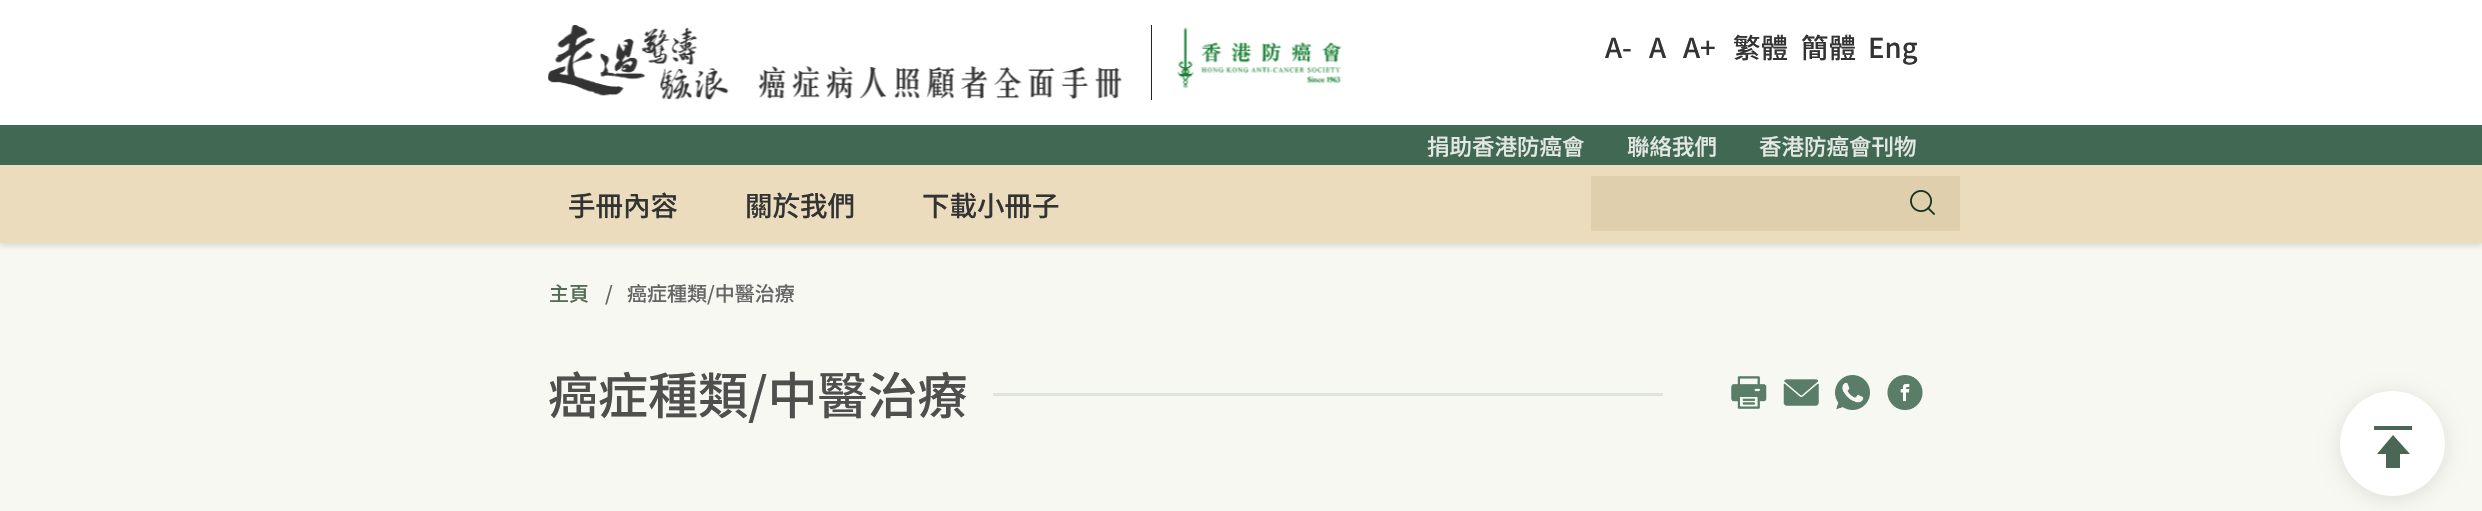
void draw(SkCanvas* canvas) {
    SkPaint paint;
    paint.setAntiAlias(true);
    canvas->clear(0xFFF7F8F1);
    paint.setColor(0xFFFFFFFF);
    canvas->drawRect(SkRect::MakeXYWH(0, 0, 2482, 125), paint);
    paint.setColor(0xFF212529);
    canvas->drawRect(SkRect::MakeXYWH(1151, 25, 1, 75), paint);
    canvas->drawImageRect(SkImages::DeferredFromEncodedData(SkData::MakeFromFileName("img1.png")), SkRect::MakeXYWH(548, 25, 574, 75), SkSamplingOptions());
    canvas->drawImageRect(SkImages::DeferredFromEncodedData(SkData::MakeFromFileName("img2.png")), SkRect::MakeXYWH(1177, 27, 165, 61), SkSamplingOptions());
    SkFont font1(fontMgr->matchFamilyStyle("Noto Sans HK", SkFontStyle(500, SkFontStyle::kNormal_Width, SkFontStyle::kUpright_Slant)), 27.5f);
    font1.setSubpixel(true);
    paint.setColor(0xFF333333);
    canvas->drawString("A-", 1605, 58, font1, paint);
    canvas->drawString("A", 1649, 58, font1, paint);
    canvas->drawString("A+", 1683, 58, font1, paint);
    canvas->drawString("繁體", 1733, 58, font1, paint);
    canvas->drawString("簡體", 1801, 58, font1, paint);
    canvas->drawString("Eng", 1868, 58, font1, paint);
    paint.setColor(0x26000000);
    paint.setMaskFilter(SkMaskFilter::MakeBlur(kNormal_SkBlurStyle, 3));
    canvas->drawRect(SkRect::MakeXYWH(0, 168, 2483, 77), paint);
    paint.setMaskFilter(nullptr);
    paint.setColor(0xFF416852);
    canvas->drawRect(SkRect::MakeXYWH(0, 125, 2482, 40), paint);
    SkFont font2(fontMgr->matchFamilyStyle("Noto Sans HK", SkFontStyle(500, SkFontStyle::kNormal_Width, SkFontStyle::kUpright_Slant)), 22.5f);
    font2.setSubpixel(true);
    paint.setColor(0xFFE3E8E5);
    canvas->drawString("捐助香港防癌會", 1427, 155, font2, paint);
    canvas->drawString("聯絡我們", 1627, 155, font2, paint);
    canvas->drawString("香港防癌會刊物", 1759, 155, font2, paint);
    paint.setColor(0xFFEADCBD);
    canvas->drawRect(SkRect::MakeXYWH(0, 165, 2482, 78), paint);
    paint.setColor(0xFF333333);
    canvas->drawString("手冊內容", 568, 216, font1, paint);
    canvas->drawString("關於我們", 745, 216, font1, paint);
    canvas->drawString("下載小冊子", 922, 216, font1, paint);
    paint.setColor(0xFFDFCFAC);
    canvas->drawRect(SkRect::MakeXYWH(1591, 176, 369, 55), paint);
    canvas->drawImageRect(SkImages::DeferredFromEncodedData(SkData::MakeFromFileName("img3.png")), SkRect::MakeXYWH(1910, 190, 25, 25), SkSamplingOptions());
    SkFont font3(fontMgr->matchFamilyStyle("Noto Sans HK", SkFontStyle(500, SkFontStyle::kNormal_Width, SkFontStyle::kUpright_Slant)), 20);
    font3.setSubpixel(true);
    paint.setColor(0xFF526C55);
    canvas->drawString("主頁", 549, 301, font3, paint);
    paint.setColor(0xFF666666);
    canvas->drawString("/", 605, 301, font3, paint);
    canvas->drawString("癌症種類/中醫治療", 627, 301, font3, paint);
    SkFont font4(fontMgr->matchFamilyStyle("Noto Sans HK", SkFontStyle(500, SkFontStyle::kNormal_Width, SkFontStyle::kUpright_Slant)), 50);
    font4.setSubpixel(true);
    paint.setColor(0xFF4F4F4E);
    canvas->drawString("癌症種類/中醫治療", 548, 414, font4, paint);
    paint.setColor(0xFFDFE5DD);
    canvas->drawRect(SkRect::MakeXYWH(993, 393, 670, 3), paint);
    canvas->drawImageRect(SkImages::DeferredFromEncodedData(SkData::MakeFromFileName("img4.png")), SkRect::MakeXYWH(1731, 376, 36, 33), SkSamplingOptions());
    canvas->drawImageRect(SkImages::DeferredFromEncodedData(SkData::MakeFromFileName("img5.png")), SkRect::MakeXYWH(1783, 379, 36, 27), SkSamplingOptions());
    canvas->drawImageRect(SkImages::DeferredFromEncodedData(SkData::MakeFromFileName("img6.png")), SkRect::MakeXYWH(1835, 375, 35, 35), SkSamplingOptions());
    canvas->drawImageRect(SkImages::DeferredFromEncodedData(SkData::MakeFromFileName("img7.png")), SkRect::MakeXYWH(1887, 375, 36, 35), SkSamplingOptions());
    paint.setColor(0x1A000000);
    paint.setMaskFilter(SkMaskFilter::MakeBlur(kNormal_SkBlurStyle, 9.5f));
    canvas->drawRoundRect(SkRect::MakeXYWH(2340, 394, 105, 105), 52.5f, 52.5f, paint);
    paint.setMaskFilter(nullptr);
    paint.setColor(0xFFFFFFFF);
    canvas->drawCircle(2392.5f, 443.5f, 52.5f, paint);
    paint.setColor(0xFF496754);
    canvas->drawPath(SkPathBuilder().moveTo(2377, 454).lineTo(2386, 454).lineTo(2386, 468).lineTo(2400, 468).lineTo(2400, 454).lineTo(2410, 454).lineTo(2393, 435).close().moveTo(2374, 426).lineTo(2412, 426).lineTo(2412, 430).lineTo(2374, 430).close().detach(), paint);
}
